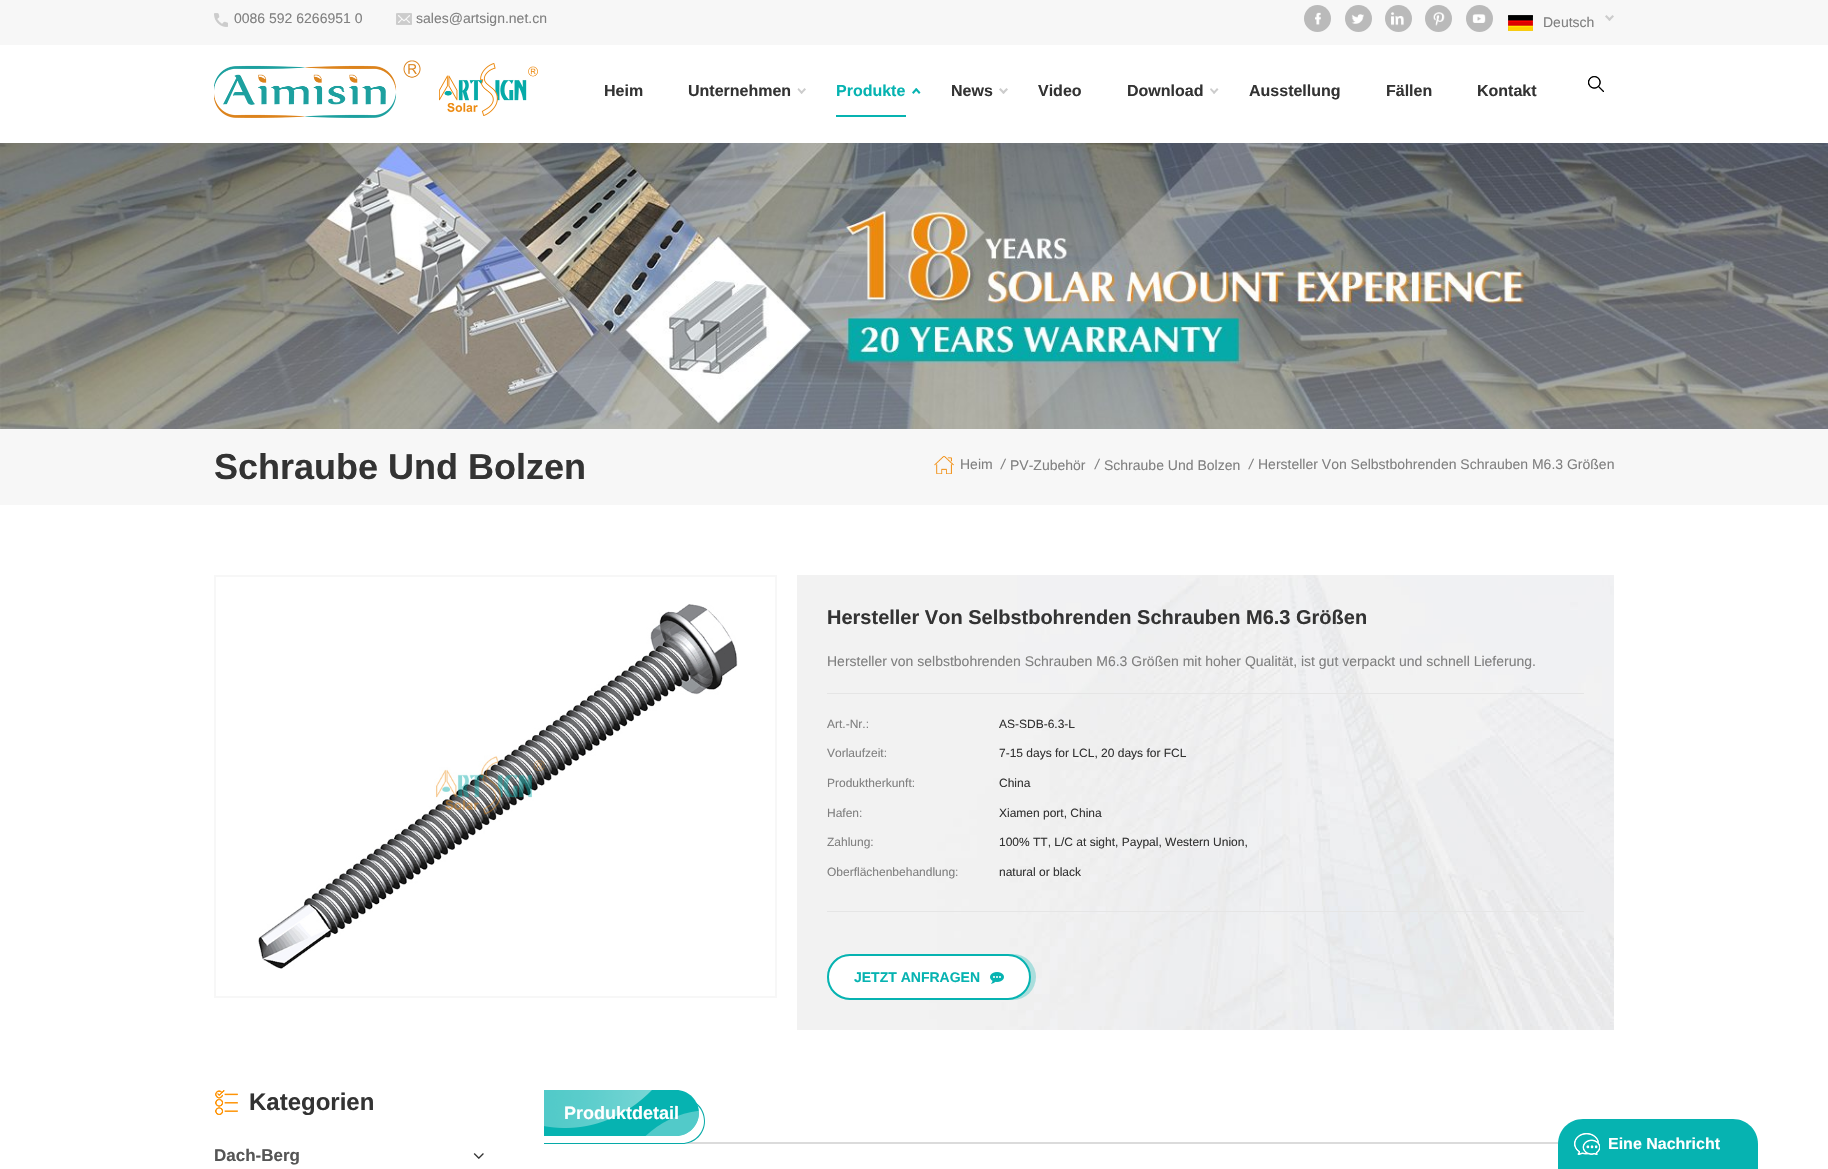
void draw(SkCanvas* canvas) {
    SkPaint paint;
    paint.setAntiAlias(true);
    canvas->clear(0xFFFFFFFF);
    paint.setColor(0xFFF7F7F7);
    canvas->drawRect(SkRect::MakeXYWH(0, 0, 1828, 45), paint);
    canvas->drawImageRect(SkImages::DeferredFromEncodedData(SkData::MakeFromFileName("img1.png")), SkRect::MakeXYWH(214, 13, 14, 14), SkSamplingOptions());
    SkFont font1(fontMgr->matchFamilyStyle("Liberation Sans", SkFontStyle::Normal()), 14);
    font1.setSubpixel(true);
    paint.setColor(0xFF808080);
    canvas->drawString("0086 592 6266951 0", 234, 23, font1, paint);
    canvas->drawImageRect(SkImages::DeferredFromEncodedData(SkData::MakeFromFileName("img2.png")), SkRect::MakeXYWH(396, 13, 16, 12), SkSamplingOptions());
    canvas->drawString("sales@artsign.net.cn", 416, 23, font1, paint);
    paint.setColor(0xFFBABABA);
    canvas->drawCircle(1317.5f, 18.5f, 13.5f, paint);
    canvas->drawImageRect(SkImages::DeferredFromEncodedData(SkData::MakeFromFileName("img3.png")), SkRect::MakeXYWH(1315, 12, 6, 13), SkSamplingOptions());
    canvas->drawCircle(1358.5f, 18.5f, 13.5f, paint);
    canvas->drawImageRect(SkImages::DeferredFromEncodedData(SkData::MakeFromFileName("img4.png")), SkRect::MakeXYWH(1351, 14, 13, 10), SkSamplingOptions());
    canvas->drawCircle(1398.5f, 18.5f, 13.5f, paint);
    canvas->drawImageRect(SkImages::DeferredFromEncodedData(SkData::MakeFromFileName("img5.png")), SkRect::MakeXYWH(1391, 12, 13, 14), SkSamplingOptions());
    canvas->drawCircle(1438.5f, 18.5f, 13.5f, paint);
    canvas->drawImageRect(SkImages::DeferredFromEncodedData(SkData::MakeFromFileName("img6.png")), SkRect::MakeXYWH(1433, 12, 12, 14), SkSamplingOptions());
    canvas->drawCircle(1479.5f, 18.5f, 13.5f, paint);
    canvas->drawImageRect(SkImages::DeferredFromEncodedData(SkData::MakeFromFileName("img7.png")), SkRect::MakeXYWH(1472, 14, 14, 9), SkSamplingOptions());
    canvas->drawImageRect(SkImages::DeferredFromEncodedData(SkData::MakeFromFileName("img8.png")), SkRect::MakeXYWH(1508, 15, 25, 16), SkSamplingOptions());
    paint.setColor(0xFFCCCCCC);
    canvas->drawPath(SkPathBuilder().moveTo(1606.5f, 15).lineTo(1611, 19.5f).lineTo(1609.5f, 21).lineTo(1605, 16.5f).close().detach(), paint);
    paint.setColor(0xFF808080);
    canvas->drawString("Deutsch", 1543, 27, font1, paint);
    paint.setColor(0xFFCCCCCC);
    canvas->drawPath(SkPathBuilder().moveTo(1608, 19.5f).lineTo(1612.5f, 15).lineTo(1614, 16.5f).lineTo(1609.5f, 21).close().detach(), paint);
    canvas->drawImageRect(SkImages::DeferredFromEncodedData(SkData::MakeFromFileName("img9.png")), SkRect::MakeXYWH(214, 60, 324, 58), SkSamplingOptions());
    SkFont font2(fontMgr->matchFamilyStyle("Liberation Sans", SkFontStyle::Bold()), 16);
    font2.setSubpixel(true);
    paint.setColor(0xFF333333);
    canvas->drawString("Heim", 604, 96, font2, paint);
    canvas->drawString("Unternehmen", 688, 96, font2, paint);
    paint.setColor(0xFFCCCCCC);
    canvas->drawPath(SkPathBuilder().moveTo(798.5f, 88).lineTo(803, 92.5f).lineTo(801.5f, 94).lineTo(797.5f, 89.5f).close().detach(), paint);
    canvas->drawPath(SkPathBuilder().moveTo(800.5f, 92.5f).lineTo(804.5f, 88).lineTo(806, 89.5f).lineTo(801.5f, 94).close().detach(), paint);
    paint.setColor(0xFF06B3B1);
    canvas->drawString("Produkte", 836, 96, font2, paint);
    canvas->drawPath(SkPathBuilder().moveTo(912, 92.5f).lineTo(916, 88).lineTo(917.5f, 89.5f).lineTo(913.5f, 94).close().detach(), paint);
    canvas->drawPath(SkPathBuilder().moveTo(916.5f, 88).lineTo(920.5f, 92.5f).lineTo(919, 94).lineTo(915, 89.5f).close().detach(), paint);
    canvas->drawRect(SkRect::MakeXYWH(836, 115, 70, 2), paint);
    paint.setColor(0xFF333333);
    canvas->drawString("News", 951, 96, font2, paint);
    paint.setColor(0xFFCCCCCC);
    canvas->drawPath(SkPathBuilder().moveTo(1000.5f, 88).lineTo(1005, 92.5f).lineTo(1003.5f, 94).lineTo(999, 89.5f).close().detach(), paint);
    canvas->drawPath(SkPathBuilder().moveTo(1002, 92.5f).lineTo(1006.5f, 88).lineTo(1008, 89.5f).lineTo(1003.5f, 94).close().detach(), paint);
    paint.setColor(0xFF333333);
    canvas->drawString("Video", 1038, 96, font2, paint);
    canvas->drawString("Download", 1127, 96, font2, paint);
    paint.setColor(0xFFCCCCCC);
    canvas->drawPath(SkPathBuilder().moveTo(1211, 88).lineTo(1215.5f, 92.5f).lineTo(1214, 94).lineTo(1210, 89.5f).close().detach(), paint);
    canvas->drawPath(SkPathBuilder().moveTo(1213, 92.5f).lineTo(1217, 88).lineTo(1218.5f, 89.5f).lineTo(1214, 94).close().detach(), paint);
    paint.setColor(0xFF333333);
    canvas->drawString("Ausstellung", 1249, 96, font2, paint);
    canvas->drawString("Fällen", 1386, 96, font2, paint);
    canvas->drawString("Kontakt", 1477, 96, font2, paint);
    canvas->drawImageRect(SkImages::DeferredFromEncodedData(SkData::MakeFromFileName("img10.png")), SkRect::MakeXYWH(1588, 76, 16, 16), SkSamplingOptions());
    canvas->drawImageRect(SkImages::DeferredFromEncodedData(SkData::MakeFromFileName("img11.png")), SkRect::MakeXYWH(0, 143, 1828, 286), SkSamplingOptions());
    paint.setColor(0xFFF7F7F7);
    canvas->drawRect(SkRect::MakeXYWH(0, 429, 1828, 76), paint);
    SkFont font3(fontMgr->matchFamilyStyle("Liberation Sans", SkFontStyle::Bold()), 36);
    font3.setSubpixel(true);
    paint.setColor(0xFF333333);
    canvas->drawString("Schraube Und Bolzen", 214, 479, font3, paint);
    canvas->drawImageRect(SkImages::DeferredFromEncodedData(SkData::MakeFromFileName("img12.png")), SkRect::MakeXYWH(934, 456, 20, 18), SkSamplingOptions());
    paint.setColor(0xFF808080);
    canvas->drawString("Heim", 960, 469, font1, paint);
    SkFont font4(fontMgr->matchFamilyStyle("Liberation Sans", SkFontStyle::Italic()), 14);
    font4.setSubpixel(true);
    canvas->drawString("/", 1001, 469, font4, paint);
    canvas->drawString("PV-Zubehör", 1010, 470, font1, paint);
    canvas->drawString("/", 1095, 469, font4, paint);
    canvas->drawString("Schraube Und Bolzen", 1104, 470, font1, paint);
    canvas->drawString("/", 1249, 469, font4, paint);
    canvas->drawString("Hersteller Von Selbstbohrenden Schrauben M6.3 Größen", 1258, 469, font1, paint);
    paint.setStyle(SkPaint::kStroke_Style);
    paint.setStrokeWidth(2);
    paint.setColor(0xFFF7F7F7);
    canvas->drawRect(SkRect::MakeXYWH(215, 576, 561, 421), paint);
    canvas->drawImageRect(SkImages::DeferredFromEncodedData(SkData::MakeFromFileName("img13.png")), SkRect::MakeXYWH(258, 604, 480, 365), SkSamplingOptions());
    canvas->drawImageRect(SkImages::DeferredFromEncodedData(SkData::MakeFromFileName("img14.png")), SkRect::MakeXYWH(797, 575, 817, 455), SkSamplingOptions());
    SkFont font5(fontMgr->matchFamilyStyle("Liberation Sans", SkFontStyle::Bold()), 20);
    font5.setSubpixel(true);
    paint.setStyle(SkPaint::kFill_Style);
    paint.setColor(0xFF333333);
    canvas->drawString("Hersteller Von Selbstbohrenden Schrauben M6.3 Größen", 827, 624, font5, paint);
    paint.setColor(0xFF808080);
    canvas->drawString("Hersteller von selbstbohrenden Schrauben M6.3 Größen mit hoher Qualität, ist gut verpackt und schnell Lieferung.", 827, 666, font1, paint);
    paint.setColor(0xFFE5E5E5);
    canvas->drawRect(SkRect::MakeXYWH(827, 693, 757, 1), paint);
    canvas->drawRect(SkRect::MakeXYWH(827, 911, 757, 1), paint);
    SkFont font6(fontMgr->matchFamilyStyle("Liberation Sans", SkFontStyle::Normal()), 12);
    font6.setSubpixel(true);
    paint.setColor(0xFF808080);
    canvas->drawString("Art.-Nr.:", 827, 728, font6, paint);
    paint.setColor(0xFF333333);
    canvas->drawString("AS-SDB-6.3-L", 999, 728, font6, paint);
    paint.setColor(0xFF808080);
    canvas->drawString("Vorlaufzeit:", 827, 757, font6, paint);
    paint.setColor(0xFF333333);
    canvas->drawString("7-15 days for LCL, 20 days for FCL", 999, 757, font6, paint);
    paint.setColor(0xFF808080);
    canvas->drawString("Produktherkunft:", 827, 787, font6, paint);
    paint.setColor(0xFF333333);
    canvas->drawString("China", 999, 787, font6, paint);
    paint.setColor(0xFF808080);
    canvas->drawString("Hafen:", 827, 817, font6, paint);
    paint.setColor(0xFF333333);
    canvas->drawString("Xiamen port, China", 999, 817, font6, paint);
    paint.setColor(0xFF808080);
    canvas->drawString("Zahlung:", 827, 846, font6, paint);
    paint.setColor(0xFF333333);
    canvas->drawString("100% TT, L/C at sight, Paypal, Western Union,", 999, 846, font6, paint);
    paint.setColor(0xFF808080);
    canvas->drawString("Oberflächenbehandlung:", 827, 876, font6, paint);
    paint.setColor(0xFF333333);
    canvas->drawString("natural or black", 999, 876, font6, paint);
    paint.setColor(0x4D06B3B1);
    canvas->drawRoundRect(SkRect::MakeXYWH(827, 954, 209, 46), 23, 23, paint);
    paint.setColor(0xFFFFFFFF);
    canvas->drawRoundRect(SkRect::MakeXYWH(828, 955, 202, 44), 22, 22, paint);
    paint.setStyle(SkPaint::kStroke_Style);
    paint.setColor(0xFF06B3B1);
    canvas->drawRoundRect(SkRect::MakeXYWH(828, 955, 202, 44), 22, 22, paint);
    SkFont font7(fontMgr->matchFamilyStyle("Liberation Sans", SkFontStyle::Bold()), 14);
    font7.setSubpixel(true);
    paint.setStyle(SkPaint::kFill_Style);
    canvas->drawString("JETZT ANFRAGEN", 854, 982, font7, paint);
    canvas->drawImageRect(SkImages::DeferredFromEncodedData(SkData::MakeFromFileName("img15.png")), SkRect::MakeXYWH(990, 972, 14, 12), SkSamplingOptions());
    canvas->drawImageRect(SkImages::DeferredFromEncodedData(SkData::MakeFromFileName("img16.png")), SkRect::MakeXYWH(215, 1090, 23, 25), SkSamplingOptions());
    SkFont font8(fontMgr->matchFamilyStyle("Liberation Sans", SkFontStyle::Bold()), 24);
    font8.setSubpixel(true);
    paint.setColor(0xFF333333);
    canvas->drawString("Kategorien", 249, 1110, font8, paint);
    SkFont font9(fontMgr->matchFamilyStyle("Liberation Sans", SkFontStyle::Bold()), 17);
    font9.setSubpixel(true);
    paint.setColor(0xFF555555);
    canvas->drawString("Dach-Berg", 214, 1161, font9, paint);
    canvas->drawImageRect(SkImages::DeferredFromEncodedData(SkData::MakeFromFileName("img17.png")), SkRect::MakeXYWH(473, 1153, 11, 6), SkSamplingOptions());
    paint.setColor(0xFFDBDBDB);
    canvas->drawRect(SkRect::MakeXYWH(682, 1142, 877, 2), paint);
    paint.setColor(0xFFFFFFFF);
    canvas->drawPath(SkPathBuilder().moveTo(544, 1098).lineTo(682, 1098).cubicTo(694.5f, 1098, 705, 1108.5f, 705, 1121).cubicTo(705, 1133.5f, 694.5f, 1144, 682, 1144).lineTo(544, 1144).close().detach(), paint);
    paint.setColor(0xFF06AAA8);
    canvas->drawPath(SkPathBuilder(SkPathFillType::kEvenOdd).moveTo(544, 1098).lineTo(682, 1098).cubicTo(695, 1098, 705, 1108, 705, 1121).cubicTo(705, 1134, 695, 1144, 682, 1144).lineTo(544, 1144).close().moveTo(544, 1099).lineTo(682, 1099).cubicTo(694, 1099, 704, 1109, 704, 1121).cubicTo(704, 1133, 694, 1143, 682, 1143).lineTo(544, 1143).close().detach(), paint);
    paint.setColor(0xFF06B3B1);
    canvas->drawPath(SkPathBuilder().moveTo(544, 1090).lineTo(676, 1090).cubicTo(688.5f, 1090, 699, 1100.5f, 699, 1113).cubicTo(699, 1125.5f, 688.5f, 1136, 676, 1136).lineTo(544, 1136).close().detach(), paint);
    canvas->drawImageRect(SkImages::DeferredFromEncodedData(SkData::MakeFromFileName("img18.png")), SkRect::MakeXYWH(544, 1090, 108, 38), SkSamplingOptions());
    SkFont font10(fontMgr->matchFamilyStyle("Liberation Sans", SkFontStyle::Bold()), 18);
    font10.setSubpixel(true);
    paint.setColor(0xFFFFFFFF);
    canvas->drawString("Produktdetail", 564, 1119, font10, paint);
    canvas->save();
    canvas->clipPath(SkPathBuilder().moveTo(544, 1090).lineTo(676, 1090).cubicTo(688.5f, 1090, 699, 1100.5f, 699, 1113).cubicTo(699, 1125.5f, 688.5f, 1136, 676, 1136).lineTo(544, 1136).close().detach(), true);
    paint.setColor(0x4DFFFFFF);
    canvas->drawPath(SkPathBuilder().moveTo(710.5f, 1110).lineTo(699, 1110).lineTo(699, 1113).cubicTo(699, 1125.5f, 688.5f, 1136, 676, 1136).lineTo(616, 1136).lineTo(616, 1204.5f).cubicTo(616, 1152.5f, 658.5f, 1110, 710.5f, 1110).close().detach(), paint);
    canvas->restore();
    paint.setColor(0xFF06B3B1);
    canvas->drawPath(SkPathBuilder().moveTo(1583, 1119).lineTo(1733, 1119).cubicTo(1747, 1119, 1758, 1130, 1758, 1144).lineTo(1758, 1169).lineTo(1558, 1169).lineTo(1558, 1144).cubicTo(1558, 1130, 1569, 1119, 1583, 1119).close().detach(), paint);
    canvas->drawImageRect(SkImages::DeferredFromEncodedData(SkData::MakeFromFileName("img19.png")), SkRect::MakeXYWH(1574, 1133, 26, 22), SkSamplingOptions());
    paint.setColor(0xFFFFFFFF);
    canvas->drawString("Eine Nachricht", 1608, 1149, font2, paint);
}
